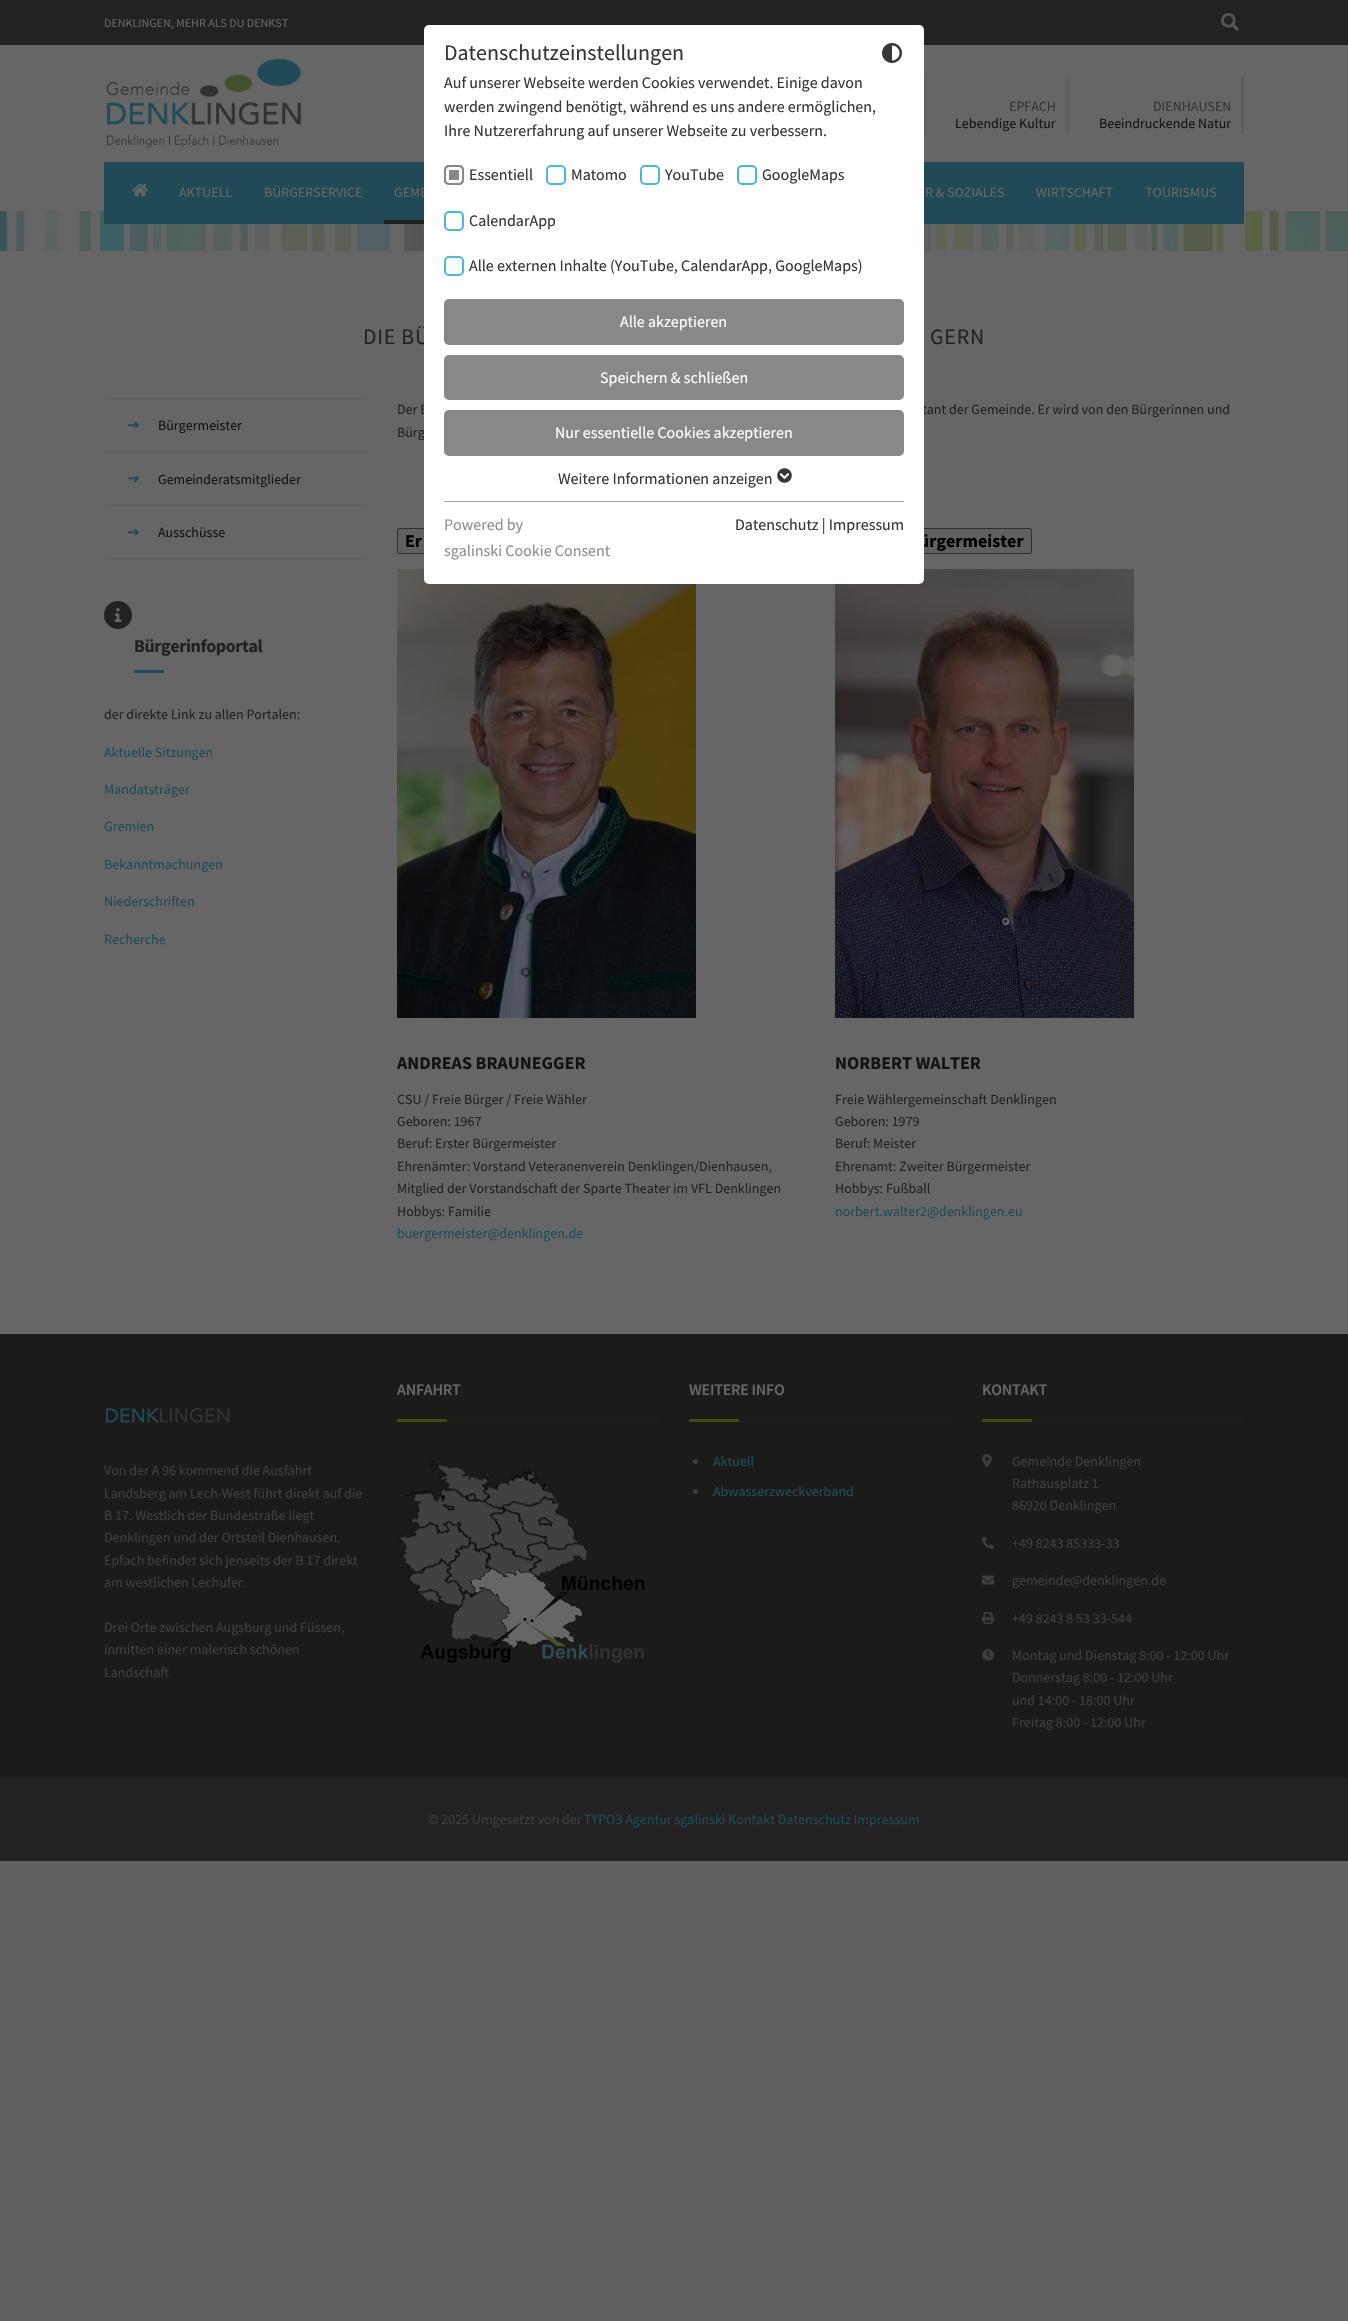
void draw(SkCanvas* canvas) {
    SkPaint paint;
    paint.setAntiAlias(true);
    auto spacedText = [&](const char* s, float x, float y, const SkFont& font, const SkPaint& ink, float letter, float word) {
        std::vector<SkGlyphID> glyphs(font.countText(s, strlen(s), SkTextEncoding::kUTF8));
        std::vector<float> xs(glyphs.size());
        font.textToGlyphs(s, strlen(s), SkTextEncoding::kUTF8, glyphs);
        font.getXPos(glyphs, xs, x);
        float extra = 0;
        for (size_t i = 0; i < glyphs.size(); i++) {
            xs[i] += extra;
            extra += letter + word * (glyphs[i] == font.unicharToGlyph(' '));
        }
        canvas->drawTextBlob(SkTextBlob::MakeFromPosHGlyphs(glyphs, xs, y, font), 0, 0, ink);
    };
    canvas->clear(0xFF606162);
    paint.setColor(0xFF666666);
    canvas->drawRect(SkRect::MakeXYWH(0, 45, 1348, 1289), paint);
    paint.setColor(0xFF222222);
    canvas->drawRect(SkRect::MakeXYWH(0, 0, 1348, 45), paint);
    SkFont font1(fontMgr->matchFamilyStyle("Source Sans Pro", SkFontStyle::Normal()), 12);
    font1.setSubpixel(true);
    paint.setColor(0xFF666666);
    canvas->drawString("DENKLINGEN, MEHR ALS DU DENKST", 104, 27, font1, paint);
    canvas->drawImageRect(SkImages::DeferredFromEncodedData(SkData::MakeFromFileName("img1.png")), SkRect::MakeXYWH(1221, 13, 18, 18), SkSamplingOptions());
    canvas->drawImageRect(SkImages::DeferredFromEncodedData(SkData::MakeFromFileName("img2.png")), SkRect::MakeXYWH(106, 59, 196, 89), SkSamplingOptions());
    paint.setColor(0xFF5F5F5F);
    canvas->drawRect(SkRect::MakeXYWH(924, 76, 1, 58), paint);
    canvas->drawRect(SkRect::MakeXYWH(1066, 76, 3, 58), paint);
    SkFont font2(fontMgr->matchFamilyStyle("Source Sans Pro", SkFontStyle::Normal()), 14);
    font2.setSubpixel(true);
    paint.setColor(0xFF353535);
    canvas->drawString("EPFACH", 1009, 111, font2, paint);
    paint.setColor(0xFF141414);
    canvas->drawString("Lebendige Kultur", 955, 128, font2, paint);
    paint.setColor(0xFF5F5F5F);
    canvas->drawRect(SkRect::MakeXYWH(1241, 76, 3, 58), paint);
    paint.setColor(0xFF353535);
    canvas->drawString("DIENHAUSEN", 1153, 111, font2, paint);
    paint.setColor(0xFF141414);
    canvas->drawString("Beeindruckende Natur", 1099, 128, font2, paint);
    canvas->drawImageRect(SkImages::DeferredFromEncodedData(SkData::MakeFromFileName("img4.png")), SkRect::MakeXYWH(0, 211, 1348, 40), SkSamplingOptions());
    paint.setColor(0xFF1F4A56);
    canvas->drawRect(SkRect::MakeXYWH(104, 162, 1140, 62), paint);
    canvas->drawImageRect(SkImages::DeferredFromEncodedData(SkData::MakeFromFileName("img3.png")), SkRect::MakeXYWH(132, 183, 16, 14), SkSamplingOptions());
    paint.setColor(0xFF666666);
    canvas->drawString("AKTUELL", 179, 197, font2, paint);
    canvas->drawString("BÜRGERSERVICE", 264, 197, font2, paint);
    paint.setColor(0xFF222222);
    canvas->drawRect(SkRect::MakeXYWH(384, 220, 40, 4), paint);
    paint.setColor(0xFF666666);
    canvas->drawString("GEME", 394, 197, font2, paint);
    canvas->drawString("R & SOZIALES", 925, 197, font2, paint);
    canvas->drawString("WIRTSCHAFT", 1036, 197, font2, paint);
    canvas->drawString("TOURISMUS", 1145, 197, font2, paint);
    SkFont font3(fontMgr->matchFamilyStyle("Source Sans Pro", SkFontStyle::Normal()), 22);
    font3.setSubpixel(true);
    paint.setColor(0xFF222222);
    spacedText("DIE BÜ", 363, 344, font3, paint, 0.75f, 0);
    spacedText("GERN", 930, 344, font3, paint, 0.75f, 0);
    paint.setColor(0xFF5F5F5F);
    canvas->drawPath(SkPathBuilder().moveTo(104, 398).lineTo(367, 398).lineTo(367, 399).lineTo(108, 399).close().detach(), paint);
    canvas->drawPath(SkPathBuilder().moveTo(367, 453).lineTo(104, 453).lineTo(108, 452).lineTo(367, 452).close().detach(), paint);
    canvas->drawImageRect(SkImages::DeferredFromEncodedData(SkData::MakeFromFileName("img5.png")), SkRect::MakeXYWH(128, 422, 11, 6), SkSamplingOptions());
    paint.setColor(0xFF141414);
    canvas->drawString("Bürgermeister", 158, 430, font2, paint);
    paint.setColor(0xFF5F5F5F);
    canvas->drawPath(SkPathBuilder().moveTo(367, 506).lineTo(104, 506).lineTo(108, 505).lineTo(367, 505).close().detach(), paint);
    canvas->drawImageRect(SkImages::DeferredFromEncodedData(SkData::MakeFromFileName("img6.png")), SkRect::MakeXYWH(128, 476, 11, 6), SkSamplingOptions());
    paint.setColor(0xFF141414);
    canvas->drawString("Gemeinderatsmitglieder", 158, 484, font2, paint);
    paint.setColor(0xFF5F5F5F);
    canvas->drawPath(SkPathBuilder().moveTo(367, 559).lineTo(104, 559).lineTo(108, 558).lineTo(367, 558).close().detach(), paint);
    canvas->drawImageRect(SkImages::DeferredFromEncodedData(SkData::MakeFromFileName("img5.png")), SkRect::MakeXYWH(128, 529, 11, 6), SkSamplingOptions());
    paint.setColor(0xFF141414);
    canvas->drawString("Ausschüsse", 158, 537, font2, paint);
    canvas->drawImageRect(SkImages::DeferredFromEncodedData(SkData::MakeFromFileName("img7.png")), SkRect::MakeXYWH(104, 601, 28, 28), SkSamplingOptions());
    SkFont font4(fontMgr->matchFamilyStyle("Source Sans Pro", SkFontStyle::Bold()), 18);
    font4.setSubpixel(true);
    paint.setColor(0xFF222222);
    spacedText("Bürgerinfoportal", 134, 652, font4, paint, -0.4f, 0);
    paint.setColor(0xFF1F4A56);
    canvas->drawRect(SkRect::MakeXYWH(134, 670, 30, 3), paint);
    paint.setColor(0xFF222222);
    canvas->drawString("der direkte Link zu allen Portalen:", 104, 719, font2, paint);
    paint.setColor(0xFF1F4A56);
    canvas->drawString("Aktuelle Sitzungen", 104, 757, font2, paint);
    canvas->drawString("Mandatsträger", 104, 794, font2, paint);
    canvas->drawString("Gremien", 104, 831, font2, paint);
    canvas->drawString("Bekanntmachungen", 104, 869, font2, paint);
    canvas->drawString("Niederschriften", 104, 906, font2, paint);
    canvas->drawString("Recherche", 104, 944, font2, paint);
    paint.setColor(0xFF222222);
    canvas->drawString("Der E", 397, 414, font2, paint);
    canvas->drawString("tant der Gemeinde. Er wird von den Bürgerinnen und", 922, 414, font2, paint);
    canvas->drawString("Bürg", 397, 437, font2, paint);
    paint.setColor(0xFF606060);
    canvas->drawRoundRect(SkRect::MakeXYWH(397.5f, 528.5f, 182, 25), 1.5f, 1.5f, paint);
    paint.setStyle(SkPaint::kStroke_Style);
    paint.setStrokeWidth(1);
    paint.setColor(0xFF2F2F2F);
    canvas->drawRoundRect(SkRect::MakeXYWH(397.5f, 528.5f, 182, 25), 1.5f, 1.5f, paint);
    paint.setStyle(SkPaint::kFill_Style);
    paint.setColor(0xFF000000);
    canvas->drawString("Er", 405, 547, font4, paint);
    canvas->drawImageRect(SkImages::DeferredFromEncodedData(SkData::MakeFromFileName("img8.png")), SkRect::MakeXYWH(397, 569, 299, 449), SkSamplingOptions());
    paint.setColor(0xFF141414);
    canvas->drawString("ANDREAS BRAUNEGGER", 397, 1069, font4, paint);
    paint.setColor(0xFF222222);
    canvas->drawString("CSU / Freie Bürger / Freie Wähler", 397, 1104, font2, paint);
    canvas->drawString("Geboren: 1967", 397, 1126, font2, paint);
    canvas->drawString("Beruf: Erster Bürgermeister", 397, 1148, font2, paint);
    canvas->drawString("Ehrenämter: Vorstand Veteranenverein Denklingen/Dienhausen,", 397, 1171, font2, paint);
    canvas->drawString("Mitglied der Vorstandschaft der Sparte Theater im VFL Denklingen", 397, 1193, font2, paint);
    canvas->drawString("Hobbys: Familie", 397, 1216, font2, paint);
    paint.setColor(0xFF1F4A56);
    canvas->drawString("buergermeister@denklingen.de", 397, 1238, font2, paint);
    paint.setColor(0xFF606060);
    canvas->drawRoundRect(SkRect::MakeXYWH(835.5f, 528.5f, 196, 25), 1.5f, 1.5f, paint);
    paint.setStyle(SkPaint::kStroke_Style);
    paint.setColor(0xFF2F2F2F);
    canvas->drawRoundRect(SkRect::MakeXYWH(835.5f, 528.5f, 196, 25), 1.5f, 1.5f, paint);
    paint.setStyle(SkPaint::kFill_Style);
    paint.setColor(0xFF000000);
    canvas->drawString("ürgermeister", 919, 547, font4, paint);
    canvas->drawImageRect(SkImages::DeferredFromEncodedData(SkData::MakeFromFileName("img9.png")), SkRect::MakeXYWH(835, 569, 299, 449), SkSamplingOptions());
    paint.setColor(0xFF141414);
    canvas->drawString("NORBERT WALTER", 835, 1069, font4, paint);
    paint.setColor(0xFF222222);
    canvas->drawString("Freie Wählergemeinschaft Denklingen", 835, 1104, font2, paint);
    canvas->drawString("Geboren: 1979", 835, 1126, font2, paint);
    canvas->drawString("Beruf: Meister", 835, 1148, font2, paint);
    canvas->drawString("Ehrenamt: Zweiter Bürgermeister", 835, 1171, font2, paint);
    canvas->drawString("Hobbys: Fußball", 835, 1193, font2, paint);
    paint.setColor(0xFF1F4A56);
    canvas->drawString("norbert.walter2@denklingen.eu", 835, 1216, font2, paint);
    paint.setColor(0xFF1B1B1A);
    canvas->drawRect(SkRect::MakeXYWH(0, 1334, 1348, 444), paint);
    canvas->drawImageRect(SkImages::DeferredFromEncodedData(SkData::MakeFromFileName("img10.png")), SkRect::MakeXYWH(105, 1408, 125, 15), SkSamplingOptions());
    paint.setColor(0xFF3D3D3D);
    canvas->drawString("Von der A 96 kommend die Ausfahrt", 104, 1475, font2, paint);
    canvas->drawString("Landsberg am Lech-West führt direkt auf die", 104, 1498, font2, paint);
    canvas->drawString("B 17. Westlich der Bundestraße liegt", 104, 1520, font2, paint);
    canvas->drawString("Denklingen und der Ortsteil Dienhausen.", 104, 1542, font2, paint);
    canvas->drawString("Epfach befindet sich jenseits der B 17 direkt", 104, 1565, font2, paint);
    canvas->drawString("am westlichen Lechufer.", 104, 1587, font2, paint);
    canvas->drawString("Drei Orte zwischen Augsburg und Füssen,", 104, 1632, font2, paint);
    canvas->drawString("inmitten einer malerisch schönen", 104, 1654, font2, paint);
    canvas->drawString("Landschaft", 104, 1677, font2, paint);
    paint.setColor(0xFF222222);
    canvas->drawRect(SkRect::MakeXYWH(447, 1421, 212, 1), paint);
    SkFont font5(fontMgr->matchFamilyStyle("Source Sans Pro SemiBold", SkFontStyle(600, SkFontStyle::kNormal_Width, SkFontStyle::kUpright_Slant)), 16);
    font5.setSubpixel(true);
    paint.setColor(0xFF666666);
    spacedText("ANFAHRT", 397, 1395, font5, paint, -0.25f, 0);
    paint.setColor(0xFF3C4B0E);
    canvas->drawRect(SkRect::MakeXYWH(397, 1419, 50, 3), paint);
    canvas->drawImageRect(SkImages::DeferredFromEncodedData(SkData::MakeFromFileName("img11.png")), SkRect::MakeXYWH(398, 1460, 247, 203), SkSamplingOptions());
    paint.setColor(0xFF222222);
    canvas->drawRect(SkRect::MakeXYWH(739, 1421, 213, 1), paint);
    paint.setColor(0xFF666666);
    spacedText("WEITERE INFO", 689, 1395, font5, paint, -0.25f, 0);
    paint.setColor(0xFF3C4B0E);
    canvas->drawRect(SkRect::MakeXYWH(689, 1419, 50, 3), paint);
    paint.setColor(0xFF3D3D3D);
    canvas->drawCircle(695.5f, 1461.5f, 2.5f, paint);
    paint.setColor(0xFF1F4A56);
    canvas->drawString("Aktuell", 713, 1466, font2, paint);
    paint.setColor(0xFF3D3D3D);
    canvas->drawCircle(695.5f, 1491.5f, 2.5f, paint);
    paint.setColor(0xFF1F4A56);
    canvas->drawString("Abwasserzweckverband", 713, 1496, font2, paint);
    paint.setColor(0xFF222222);
    canvas->drawRect(SkRect::MakeXYWH(1032, 1421, 212, 1), paint);
    paint.setColor(0xFF666666);
    spacedText("KONTAKT", 982, 1395, font5, paint, -0.25f, 0);
    paint.setColor(0xFF3C4B0E);
    canvas->drawRect(SkRect::MakeXYWH(982, 1419, 50, 3), paint);
    canvas->drawImageRect(SkImages::DeferredFromEncodedData(SkData::MakeFromFileName("img12.png")), SkRect::MakeXYWH(982, 1454, 10, 13), SkSamplingOptions());
    paint.setColor(0xFF3D3D3D);
    canvas->drawString("Gemeinde Denklingen", 1012, 1466, font2, paint);
    canvas->drawString("Rathausplatz 1", 1012, 1488, font2, paint);
    canvas->drawString("86920 Denklingen", 1012, 1510, font2, paint);
    canvas->drawImageRect(SkImages::DeferredFromEncodedData(SkData::MakeFromFileName("img13.png")), SkRect::MakeXYWH(982, 1537, 12, 12), SkSamplingOptions());
    canvas->drawString("+49 8243 85333-33", 1012, 1548, font2, paint);
    canvas->drawImageRect(SkImages::DeferredFromEncodedData(SkData::MakeFromFileName("img14.png")), SkRect::MakeXYWH(982, 1575, 12, 10), SkSamplingOptions());
    canvas->drawString("gemeinde@denklingen.de", 1012, 1585, font2, paint);
    canvas->drawImageRect(SkImages::DeferredFromEncodedData(SkData::MakeFromFileName("img15.png")), SkRect::MakeXYWH(982, 1612, 12, 12), SkSamplingOptions());
    canvas->drawString("+49 8243 8 53 33-544", 1012, 1623, font2, paint);
    canvas->drawImageRect(SkImages::DeferredFromEncodedData(SkData::MakeFromFileName("img16.png")), SkRect::MakeXYWH(982, 1649, 12, 12), SkSamplingOptions());
    canvas->drawString("Montag und Dienstag 8:00 - 12:00 Uhr", 1012, 1660, font2, paint);
    canvas->drawString("Donnerstag 8:00 - 12:00 Uhr", 1012, 1682, font2, paint);
    canvas->drawString("und 14:00 - 18:00 Uhr", 1012, 1705, font2, paint);
    canvas->drawString("Freitag 8:00 - 12:00 Uhr", 1012, 1727, font2, paint);
    paint.setColor(0xFF222222);
    canvas->drawRect(SkRect::MakeXYWH(0, 1778, 1348, 83), paint);
    paint.setColor(0xFF3D3D3D);
    canvas->drawString("© 2025 Umgesetzt von der", 428, 1824, font2, paint);
    paint.setColor(0xFF1F4A56);
    canvas->drawString("TYPO3 Agentur sgalinski Kontakt Datenschutz Impressum", 584, 1824, font2, paint);
    paint.setColor(0xFFFFFFFF);
    canvas->drawRoundRect(SkRect::MakeXYWH(424, 25, 500, 559), 5, 5, paint);
    paint.setColor(0xFF353535);
    canvas->drawString("Datenschutzeinstellungen", 444, 60, font3, paint);
    canvas->drawImageRect(SkImages::DeferredFromEncodedData(SkData::MakeFromFileName("img17.png")), SkRect::MakeXYWH(882, 43, 20, 20), SkSamplingOptions());
    SkFont font6(fontMgr->matchFamilyStyle("Source Sans Pro", SkFontStyle::Normal()), 16);
    font6.setSubpixel(true);
    canvas->drawString("Auf unserer Webseite werden Cookies verwendet. Einige davon", 444, 88, font6, paint);
    canvas->drawString("werden zwingend benötigt, während es uns andere ermöglichen,", 444, 112, font6, paint);
    canvas->drawString("Ihre Nutzererfahrung auf unserer Webseite zu verbessern.", 444, 136, font6, paint);
    paint.setColor(0xFF888888);
    canvas->drawRoundRect(SkRect::MakeXYWH(444, 165, 20, 20), 5, 5, paint);
    paint.setStyle(SkPaint::kStroke_Style);
    paint.setStrokeWidth(3);
    paint.setColor(0xFFFFFFFF);
    canvas->drawRoundRect(SkRect::MakeXYWH(447.5f, 168.5f, 13, 13), 1.5f, 1.5f, paint);
    paint.setStrokeWidth(2);
    paint.setColor(0xFF888888);
    canvas->drawRoundRect(SkRect::MakeXYWH(445, 166, 18, 18), 4, 4, paint);
    paint.setStyle(SkPaint::kFill_Style);
    paint.setColor(0xFF353535);
    canvas->drawString("Essentiell", 469, 180, font6, paint);
    paint.setStyle(SkPaint::kStroke_Style);
    paint.setColor(0xFF4DB8D6);
    canvas->drawRoundRect(SkRect::MakeXYWH(547, 166, 18, 18), 4, 4, paint);
    paint.setStyle(SkPaint::kFill_Style);
    paint.setColor(0xFF353535);
    canvas->drawString("Matomo", 571, 180, font6, paint);
    paint.setStyle(SkPaint::kStroke_Style);
    paint.setColor(0xFF4DB8D6);
    canvas->drawRoundRect(SkRect::MakeXYWH(641, 166, 18, 18), 4, 4, paint);
    paint.setStyle(SkPaint::kFill_Style);
    paint.setColor(0xFF353535);
    canvas->drawString("YouTube", 665, 180, font6, paint);
    paint.setStyle(SkPaint::kStroke_Style);
    paint.setColor(0xFF4DB8D6);
    canvas->drawRoundRect(SkRect::MakeXYWH(738, 166, 18, 18), 4, 4, paint);
    paint.setStyle(SkPaint::kFill_Style);
    paint.setColor(0xFF353535);
    canvas->drawString("GoogleMaps", 762, 180, font6, paint);
    paint.setStyle(SkPaint::kStroke_Style);
    paint.setColor(0xFF4DB8D6);
    canvas->drawRoundRect(SkRect::MakeXYWH(445, 212, 18, 18), 4, 4, paint);
    paint.setStyle(SkPaint::kFill_Style);
    paint.setColor(0xFF353535);
    canvas->drawString("CalendarApp", 469, 226, font6, paint);
    paint.setStyle(SkPaint::kStroke_Style);
    paint.setColor(0xFF4DB8D6);
    canvas->drawRoundRect(SkRect::MakeXYWH(445, 257, 18, 18), 4, 4, paint);
    paint.setStyle(SkPaint::kFill_Style);
    paint.setColor(0xFF353535);
    canvas->drawString("Alle externen Inhalte (YouTube, CalendarApp, GoogleMaps)", 469, 271, font6, paint);
    paint.setColor(0xFF888888);
    canvas->drawRoundRect(SkRect::MakeXYWH(444, 299, 460, 46), 5, 5, paint);
    paint.setColor(0xFFFFFFFF);
    canvas->drawString("Alle akzeptieren", 620, 327, font6, paint);
    paint.setColor(0xFF888888);
    canvas->drawRoundRect(SkRect::MakeXYWH(444, 355, 460, 45), 5, 5, paint);
    paint.setColor(0xFFFFFFFF);
    canvas->drawString("Speichern & schließen", 600, 383, font6, paint);
    paint.setColor(0xFF888888);
    canvas->drawRoundRect(SkRect::MakeXYWH(444, 410, 460, 46), 5, 5, paint);
    paint.setColor(0xFFFFFFFF);
    canvas->drawString("Nur essentielle Cookies akzeptieren", 555, 438, font6, paint);
    paint.setColor(0xFF353535);
    canvas->drawString("Weitere Informationen anzeigen", 558, 484, font6, paint);
    canvas->drawImageRect(SkImages::DeferredFromEncodedData(SkData::MakeFromFileName("img18.png")), SkRect::MakeXYWH(777, 468, 15, 15), SkSamplingOptions());
    paint.setColor(0xFFA5A5A5);
    canvas->drawRect(SkRect::MakeXYWH(444, 501, 460, 1), paint);
    paint.setColor(0xFF8E8E8E);
    canvas->drawString("Powered by", 444, 530, font6, paint);
    canvas->drawString("sgalinski Cookie Consent", 444, 556, font6, paint);
    paint.setColor(0xFF353535);
    canvas->drawString("Datenschutz | Impressum", 735, 530, font6, paint);
}
